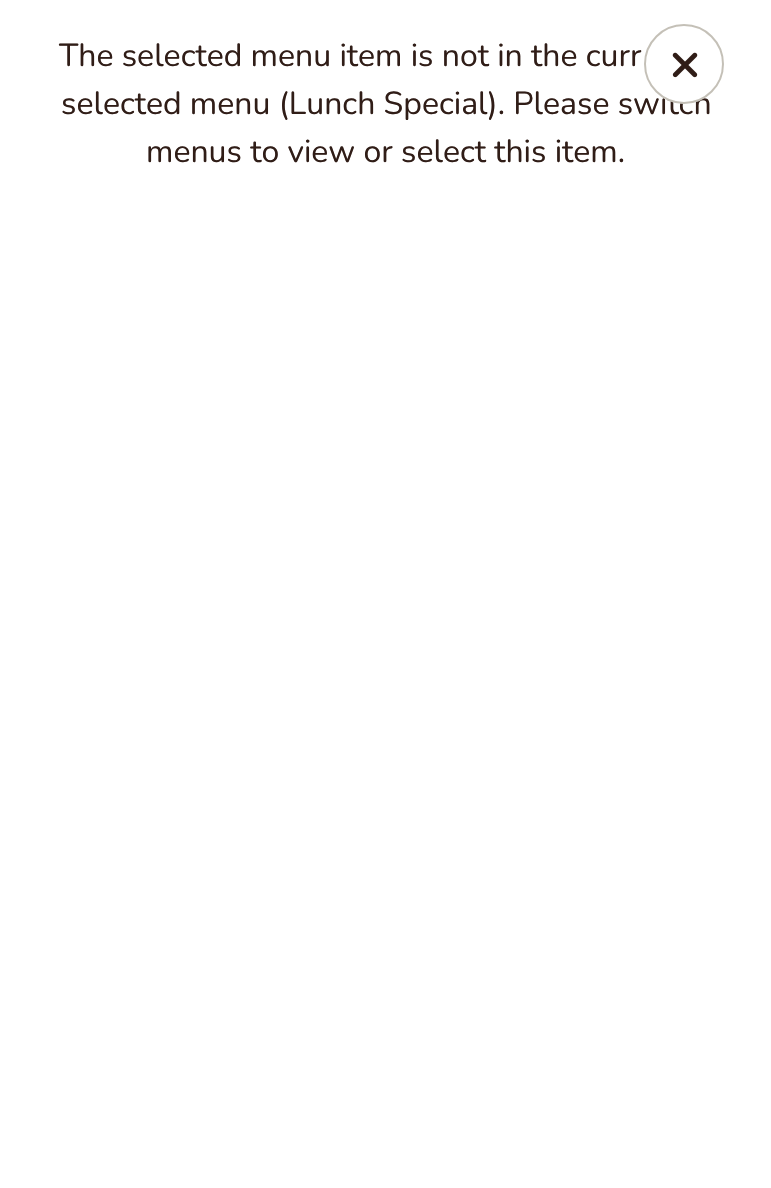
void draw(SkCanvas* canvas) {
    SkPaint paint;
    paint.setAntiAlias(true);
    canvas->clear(0xFFFFFFFF);
    SkFont font1(fontMgr->matchFamilyStyle("Nunito", SkFontStyle::Normal()), 32);
    font1.setSubpixel(true);
    paint.setColor(0xFF301D17);
    canvas->drawString("selected menu (Lunch Special). Please switch", 61, 114, font1, paint);
    paint.setColor(0xFFFFFFFF);
    canvas->drawCircle(684, 64, 40, paint);
    canvas->drawImageRect(SkImages::DeferredFromEncodedData(SkData::MakeFromFileName("img1.png")), SkRect::MakeXYWH(672, 52, 26, 26), SkSamplingOptions());
    paint.setStyle(SkPaint::kStroke_Style);
    paint.setStrokeWidth(2);
    paint.setColor(0x8C948D7C);
    canvas->drawCircle(684, 64, 39, paint);
    paint.setStyle(SkPaint::kFill_Style);
    paint.setColor(0xFF301D17);
    canvas->drawString("The selected menu item is not in the curr", 59, 66, font1, paint);
    canvas->drawString("menus to view or select this item.", 146, 162, font1, paint);
}
